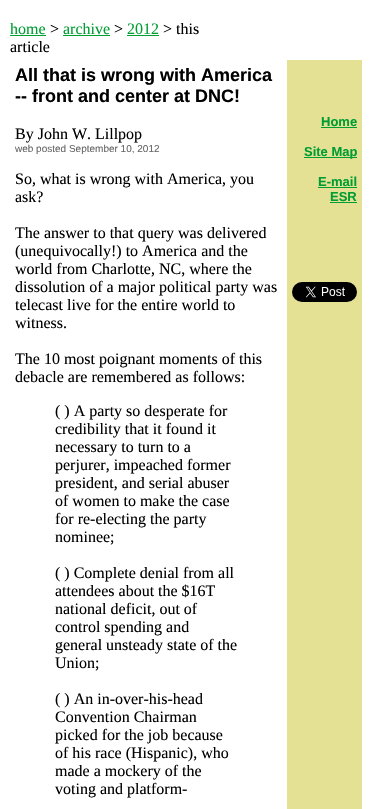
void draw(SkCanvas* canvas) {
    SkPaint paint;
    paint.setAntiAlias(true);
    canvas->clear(0xFFFFFFFF);
    SkFont font1(fontMgr->matchFamilyStyle("Liberation Serif", SkFontStyle::Normal()), 16);
    font1.setSubpixel(true);
    paint.setColor(0xFF009D33);
    canvas->drawString("home", 10, 34, font1, paint);
    canvas->drawRect(SkRect::MakeXYWH(10, 35, 36, 1), paint);
    paint.setColor(0xFF000000);
    canvas->drawString(">", 50, 34, font1, paint);
    paint.setColor(0xFF009D33);
    canvas->drawString("archive", 63, 34, font1, paint);
    canvas->drawRect(SkRect::MakeXYWH(63, 35, 47, 1), paint);
    paint.setColor(0xFF000000);
    canvas->drawString(">", 114, 34, font1, paint);
    paint.setColor(0xFF009D33);
    canvas->drawString("2012", 127, 34, font1, paint);
    canvas->drawRect(SkRect::MakeXYWH(127, 35, 32, 1), paint);
    paint.setColor(0xFF000000);
    canvas->drawString("> this", 163, 34, font1, paint);
    canvas->drawString("article", 10, 52, font1, paint);
    SkFont font2(fontMgr->matchFamilyStyle("Liberation Sans", SkFontStyle::Bold()), 18);
    font2.setSubpixel(true);
    canvas->drawString("All that is wrong with America", 15, 81, font2, paint);
    canvas->drawString("-- front and center at DNC!", 15, 102, font2, paint);
    canvas->drawString("By John W. Lillpop", 15, 139, font1, paint);
    SkFont font3(fontMgr->matchFamilyStyle("Liberation Sans", SkFontStyle::Normal()), 10);
    font3.setSubpixel(true);
    paint.setColor(0xFF666666);
    canvas->drawString("web posted September 10, 2012", 15, 152, font3, paint);
    paint.setColor(0xFF000000);
    canvas->drawString("So, what is wrong with America, you", 15, 184, font1, paint);
    canvas->drawString("ask?", 15, 202, font1, paint);
    canvas->drawString("The answer to that query was delivered", 15, 238, font1, paint);
    canvas->drawString("(unequivocally!) to America and the", 15, 256, font1, paint);
    canvas->drawString("world from Charlotte, NC, where the", 15, 274, font1, paint);
    canvas->drawString("dissolution of a major political party was", 15, 292, font1, paint);
    canvas->drawString("telecast live for the entire world to", 15, 310, font1, paint);
    canvas->drawString("witness.", 15, 328, font1, paint);
    canvas->drawString("The 10 most poignant moments of this", 15, 364, font1, paint);
    canvas->drawString("debacle are remembered as follows:", 15, 382, font1, paint);
    canvas->drawString("( ) A party so desperate for", 55, 416, font1, paint);
    canvas->drawString("credibility that it found it", 55, 434, font1, paint);
    canvas->drawString("necessary to turn to a", 55, 452, font1, paint);
    canvas->drawString("perjurer, impeached former", 55, 470, font1, paint);
    canvas->drawString("president, and serial abuser", 55, 488, font1, paint);
    canvas->drawString("of women to make the case", 55, 506, font1, paint);
    canvas->drawString("for re-electing the party", 55, 524, font1, paint);
    canvas->drawString("nominee;", 55, 542, font1, paint);
    canvas->drawString("( ) Complete denial from all", 55, 578, font1, paint);
    canvas->drawString("attendees about the $16T", 55, 596, font1, paint);
    canvas->drawString("national deficit, out of", 55, 614, font1, paint);
    canvas->drawString("control spending and", 55, 632, font1, paint);
    canvas->drawString("general unsteady state of the", 55, 650, font1, paint);
    canvas->drawString("Union;", 55, 668, font1, paint);
    canvas->drawString("( ) An in-over-his-head", 55, 704, font1, paint);
    canvas->drawString("Convention Chairman", 55, 722, font1, paint);
    canvas->drawString("picked for the job because", 55, 740, font1, paint);
    canvas->drawString("of his race (Hispanic), who", 55, 758, font1, paint);
    canvas->drawString("made a mockery of the", 55, 776, font1, paint);
    canvas->drawString("voting and platform-", 55, 794, font1, paint);
    paint.setColor(0xFFE4E094);
    canvas->drawRect(SkRect::MakeXYWH(287, 60, 75, 749), paint);
    SkFont font4(fontMgr->matchFamilyStyle("Liberation Sans", SkFontStyle::Bold()), 13);
    font4.setSubpixel(true);
    paint.setColor(0xFF009D33);
    canvas->drawString("Home", 321, 126, font4, paint);
    canvas->drawRect(SkRect::MakeXYWH(321, 127, 36, 1), paint);
    canvas->drawRect(SkRect::MakeXYWH(304, 157, 53, 1), paint);
    canvas->drawString("Site Map", 304, 156, font4, paint);
    canvas->drawString("E-mail", 318, 186, font4, paint);
    canvas->drawRect(SkRect::MakeXYWH(318, 187, 39, 1), paint);
    canvas->drawString("ESR", 330, 201, font4, paint);
    canvas->drawRect(SkRect::MakeXYWH(330, 202, 27, 1), paint);
    canvas->drawImageRect(SkImages::DeferredFromEncodedData(SkData::MakeFromFileName("img1.png")), SkRect::MakeXYWH(292, 282, 65, 20), SkSamplingOptions());
}
